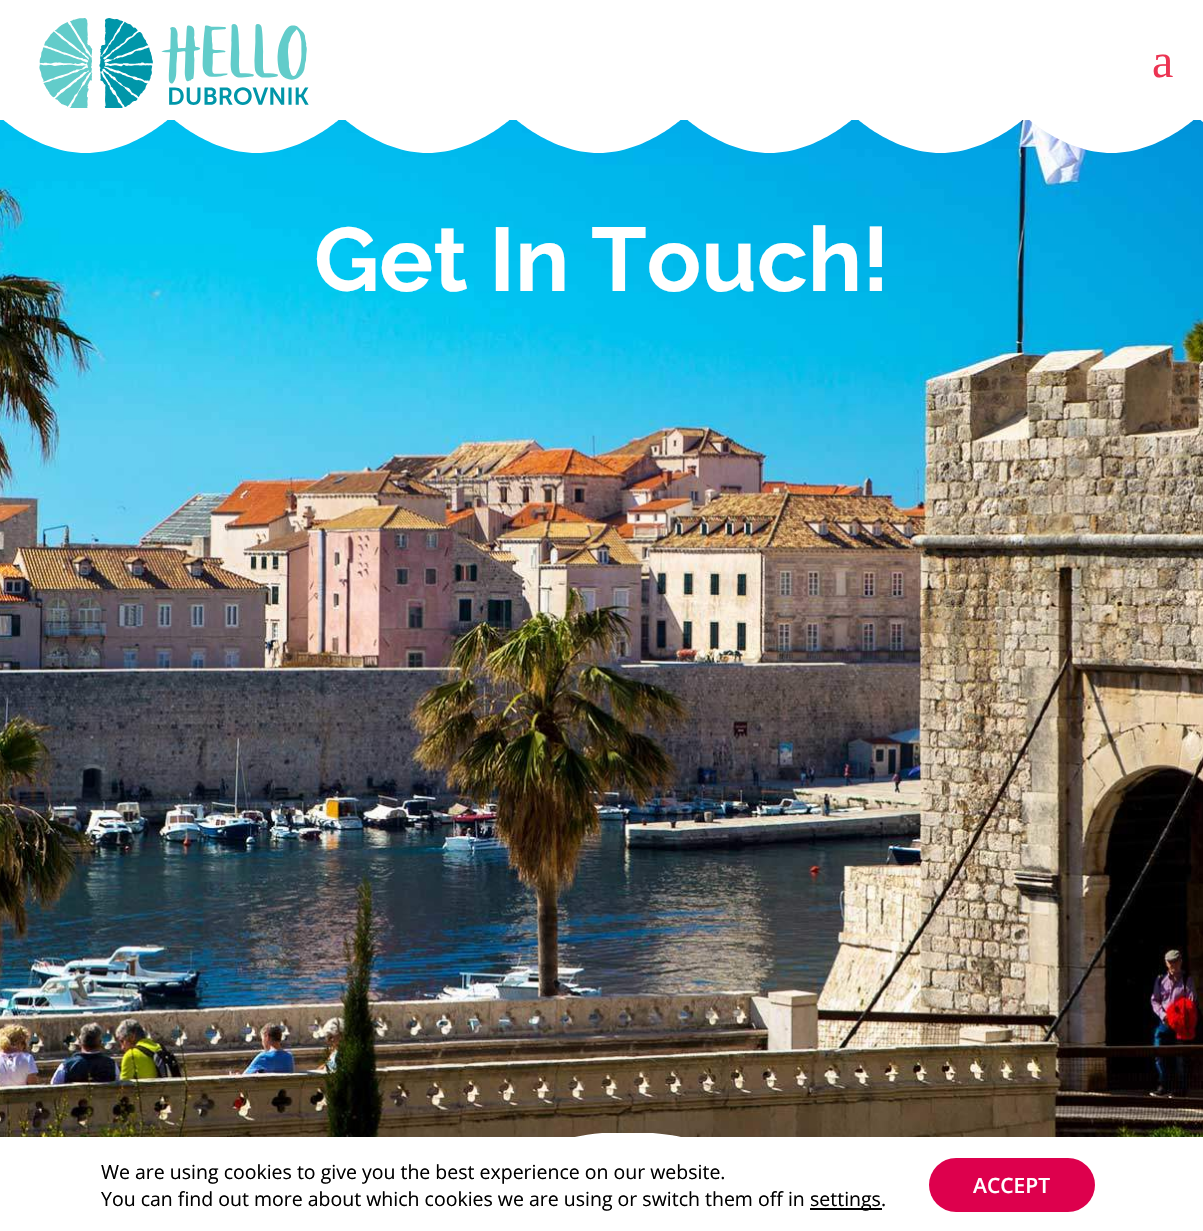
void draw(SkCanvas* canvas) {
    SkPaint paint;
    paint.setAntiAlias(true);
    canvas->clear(0xFFFFFFFF);
    canvas->drawImageRect(SkImages::DeferredFromEncodedData(SkData::MakeFromFileName("img1.png")), SkRect::MakeXYWH(39, 18, 270, 90), SkSamplingOptions());
    SkFont font1(fontMgr->matchFamilyStyle("Liberation Serif", SkFontStyle::Normal()), 48);
    font1.setSubpixel(true);
    paint.setColor(0xFFEC3453);
    canvas->drawString("a", 1152, 77, font1, paint);
    canvas->drawImageRect(SkImages::DeferredFromEncodedData(SkData::MakeFromFileName("img2.png")), SkRect::MakeXYWH(0, 120, 1203, 1017), SkSamplingOptions());
    canvas->drawImageRect(SkImages::DeferredFromEncodedData(SkData::MakeFromFileName("img3.png")), SkRect::MakeXYWH(3, 120, 1200, 33), SkSamplingOptions());
    SkFont font2(fontMgr->matchFamilyStyle("Raleway", SkFontStyle(100, SkFontStyle::kNormal_Width, SkFontStyle::kUpright_Slant)), 90);
    font2.setSubpixel(true);
    paint.setColor(0xFFFFFFFF);
    canvas->drawString("Get In Touch!", 314, 291, font2, paint);
    canvas->save();
    canvas->clipRect(SkRect::MakeXYWH(0, 1133, 1203, 60));
    canvas->drawPath(SkPathBuilder().moveTo(1203, 1169).cubicTo(1184, 1162, 1165, 1152, 1128, 1152).cubicTo(1074, 1152, 1074, 1172, 1020, 1172).cubicTo(969, 1172, 964, 1155, 911, 1155).cubicTo(868, 1155, 869, 1170, 803, 1170).cubicTo(719, 1170, 729, 1132, 626, 1132).cubicTo(521, 1132, 511, 1185, 398, 1185).cubicTo(303, 1185, 287, 1161, 218, 1161).cubicTo(145, 1161, 124, 1182, 75, 1182).cubicTo(38, 1182, 19, 1177, 0, 1169).lineTo(0, 1193).lineTo(1203, 1193).close().detach(), paint);
    canvas->restore();
    SkFont font3(fontMgr->matchFamilyStyle("Open Sans", SkFontStyle::Normal()), 19.5f);
    font3.setSubpixel(true);
    paint.setColor(0xFF000000);
    canvas->drawString("We are using cookies to give you the best experience on our website.", 101, 1179, font3, paint);
    canvas->drawString("You can find out more about which cookies we are using or switch them off in", 101, 1206, font3, paint);
    canvas->drawRect(SkRect::MakeXYWH(810, 1208, 72, 2), paint);
    canvas->drawString("settings.", 810, 1206, font3, paint);
    paint.setColor(0xFFDD004D);
    canvas->drawRoundRect(SkRect::MakeXYWH(929, 1158, 166, 54), 27, 27, paint);
    SkFont font4(fontMgr->matchFamilyStyle("Open Sans", SkFontStyle(600, SkFontStyle::kNormal_Width, SkFontStyle::kUpright_Slant)), 21);
    font4.setSubpixel(true);
    paint.setColor(0xFFFFFFFF);
    canvas->drawString("ACCEPT", 973, 1193, font4, paint);
}
